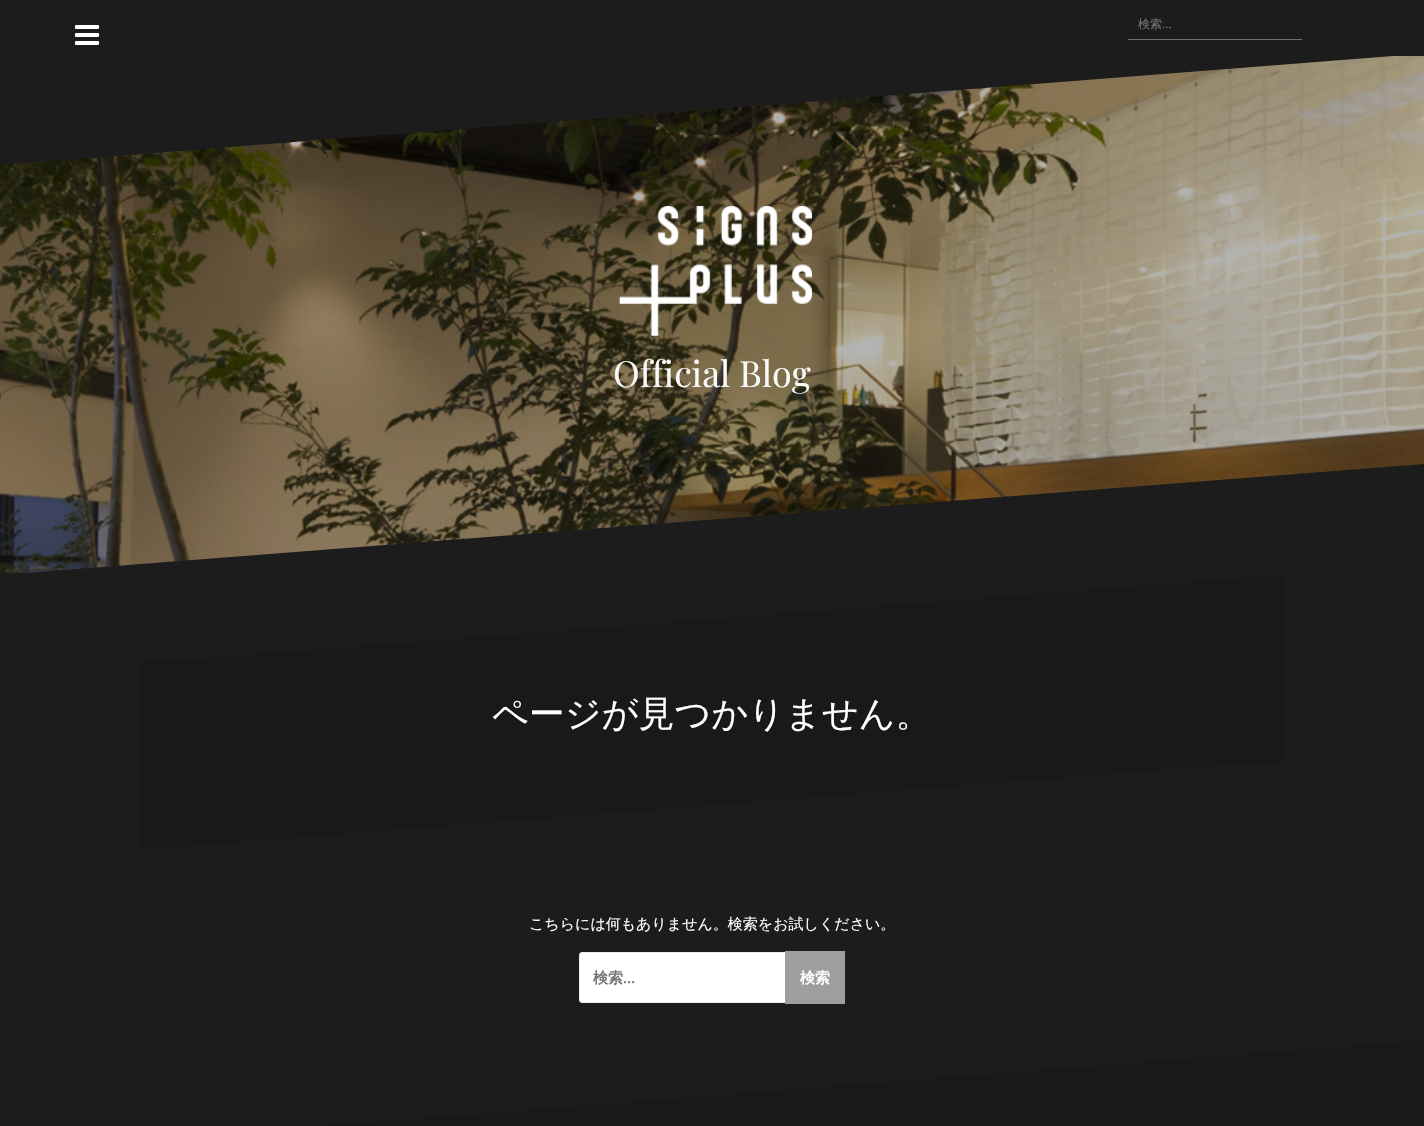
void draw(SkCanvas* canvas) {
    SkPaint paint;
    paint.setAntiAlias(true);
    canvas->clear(0xFF1C1C1C);
    canvas->drawImageRect(SkImages::DeferredFromEncodedData(SkData::MakeFromFileName("img1.png")), SkRect::MakeXYWH(75, 25, 24, 20), SkSamplingOptions());
    paint.setColor(0xFF6F6F6F);
    canvas->drawRect(SkRect::MakeXYWH(1128, 39, 174, 1), paint);
    SkFont font1(fontMgr->matchFamilyStyle("WenQuanYi Zen Hei", SkFontStyle(500, SkFontStyle::kNormal_Width, SkFontStyle::kUpright_Slant)), 12);
    font1.setSubpixel(true);
    paint.setColor(0xFF757575);
    canvas->drawString("検索", 1138, 28, font1, paint);
    SkFont font2(fontMgr->matchFamilyStyle("Open Sans", SkFontStyle::Normal()), 12);
    font2.setSubpixel(true);
    canvas->drawString("…", 1162, 28, font2, paint);
    canvas->drawImageRect(SkImages::DeferredFromEncodedData(SkData::MakeFromFileName("img2.png")), SkRect::MakeXYWH(0, 56, 1424, 517), SkSamplingOptions());
    canvas->save();
    canvas->clipRect(SkRect::MakeXYWH(0, 55, 1424, 109));
    paint.setColor(0xFF1C1C1C);
    canvas->drawPath(SkPathBuilder().moveTo(0, 165).lineTo(0, 55).lineTo(1406, 55).detach(), paint);
    canvas->restore();
    canvas->drawImageRect(SkImages::DeferredFromEncodedData(SkData::MakeFromFileName("img3.png")), SkRect::MakeXYWH(619, 206, 193, 130), SkSamplingOptions());
    SkFont font3(fontMgr->matchFamilyStyle("Playfair Display", SkFontStyle::Normal()), 36);
    font3.setSubpixel(true);
    paint.setColor(0xFFF9F9F9);
    canvas->drawString("Official Blog", 613, 387, font3, paint);
    paint.setColor(0xFF17191B);
    canvas->drawRect(SkRect::MakeXYWH(142, 662, 1140, 100), paint);
    canvas->save();
    canvas->clipRect(SkRect::MakeXYWH(142, 573, 1140, 90));
    canvas->drawPath(SkPathBuilder().moveTo(1303, 573).lineTo(1303, 663).lineTo(142, 663).detach(), paint);
    canvas->restore();
    paint.setColor(0xFF1C1C1C);
    canvas->drawPath(SkPathBuilder().moveTo(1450, 462).lineTo(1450, 575).lineTo(0, 575).detach(), paint);
    SkFont font4(fontMgr->matchFamilyStyle("WenQuanYi Zen Hei", SkFontStyle(500, SkFontStyle::kNormal_Width, SkFontStyle::kUpright_Slant)), 36);
    font4.setSubpixel(true);
    paint.setColor(0xFFFFFFFF);
    canvas->drawString("ページが見つかりません。", 492, 726, font4, paint);
    paint.setColor(0xFF17191B);
    canvas->drawPath(SkPathBuilder().moveTo(142, 850).lineTo(142, 762).lineTo(1267, 762).detach(), paint);
    SkFont font5(fontMgr->matchFamilyStyle("WenQuanYi Zen Hei", SkFontStyle(500, SkFontStyle::kNormal_Width, SkFontStyle::kUpright_Slant)), 15);
    font5.setSubpixel(true);
    paint.setColor(0xFFFFFFFF);
    canvas->drawString("こちらには何もありません。検索をお試しください。", 529, 929, font5, paint);
    canvas->drawRoundRect(SkRect::MakeXYWH(579.5f, 952.5f, 229, 50), 2.5f, 2.5f, paint);
    paint.setStyle(SkPaint::kStroke_Style);
    paint.setStrokeWidth(1);
    paint.setColor(0xFFEBEBEB);
    canvas->drawRoundRect(SkRect::MakeXYWH(579.5f, 952.5f, 229, 50), 2.5f, 2.5f, paint);
    SkFont font6(fontMgr->matchFamilyStyle("WenQuanYi Zen Hei", SkFontStyle::Bold()), 15);
    font6.setSubpixel(true);
    paint.setStyle(SkPaint::kFill_Style);
    paint.setColor(0xFF757575);
    canvas->drawString("検索", 593, 983, font6, paint);
    SkFont font7(fontMgr->matchFamilyStyle("Open Sans", SkFontStyle(600, SkFontStyle::kNormal_Width, SkFontStyle::kUpright_Slant)), 15);
    font7.setSubpixel(true);
    canvas->drawString("…", 623, 983, font7, paint);
    paint.setColor(0xFF9E9E9E);
    canvas->drawRect(SkRect::MakeXYWH(785, 951, 60, 53), paint);
    paint.setColor(0xFFFFFFFF);
    canvas->drawString("検索", 800, 983, font6, paint);
    paint.setColor(0xFF17191B);
    canvas->drawPath(SkPathBuilder().moveTo(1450, 1038).lineTo(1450, 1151).lineTo(0, 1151).detach(), paint);
}
